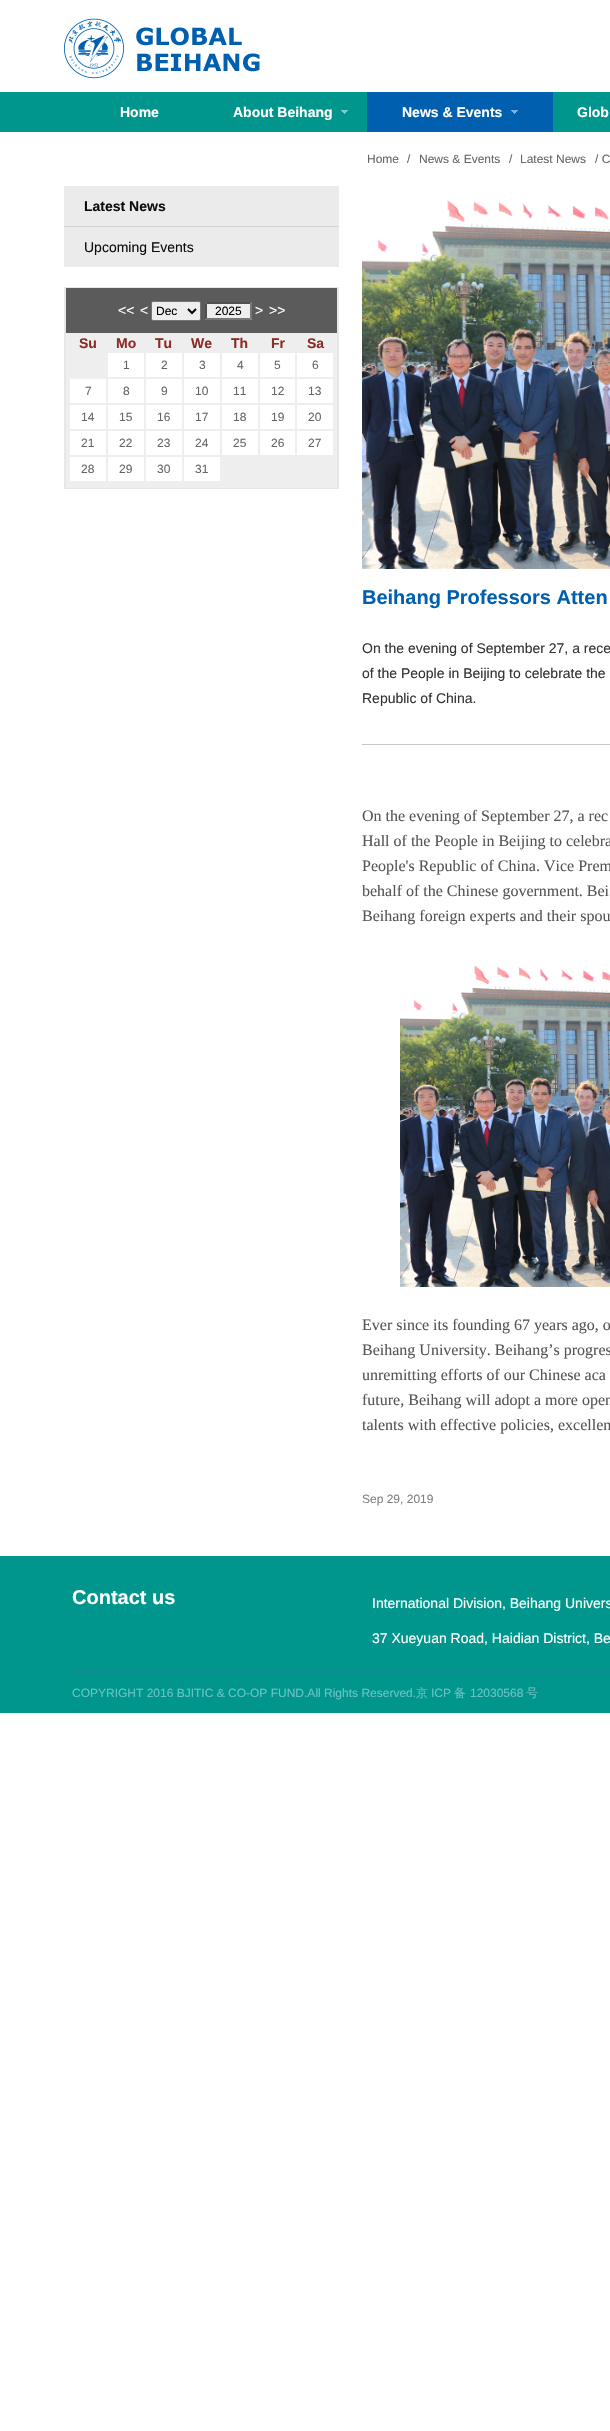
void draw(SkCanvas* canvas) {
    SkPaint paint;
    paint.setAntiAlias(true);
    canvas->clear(0xFFFFFFFF);
    canvas->drawImageRect(SkImages::DeferredFromEncodedData(SkData::MakeFromFileName("img1.png")), SkRect::MakeXYWH(64, 18, 196, 61), SkSamplingOptions());
    paint.setColor(0xFF00968D);
    canvas->drawRect(SkRect::MakeXYWH(0, 92, 610, 40), paint);
    SkFont font1(fontMgr->matchFamilyStyle("Liberation Sans", SkFontStyle::Bold()), 14);
    font1.setSubpixel(true);
    paint.setColor(0xFFFFFFFF);
    canvas->drawString("Home", 120, 117, font1, paint);
    canvas->drawString("About Beihang", 233, 117, font1, paint);
    canvas->drawImageRect(SkImages::DeferredFromEncodedData(SkData::MakeFromFileName("img2.png")), SkRect::MakeXYWH(341, 110, 7, 4), SkSamplingOptions());
    paint.setColor(0xFF005FAF);
    canvas->drawRect(SkRect::MakeXYWH(367, 92, 186, 40), paint);
    paint.setColor(0xFFFFFFFF);
    canvas->drawString("News & Events", 402, 117, font1, paint);
    canvas->drawImageRect(SkImages::DeferredFromEncodedData(SkData::MakeFromFileName("img3.png")), SkRect::MakeXYWH(511, 110, 7, 4), SkSamplingOptions());
    canvas->drawString("Glob", 577, 117, font1, paint);
    paint.setColor(0xFFEBEBEB);
    canvas->drawRect(SkRect::MakeXYWH(64, 186, 275, 40), paint);
    paint.setColor(0xFFD4D4D4);
    canvas->drawRect(SkRect::MakeXYWH(64, 226, 275, 1), paint);
    paint.setColor(0xFF0D0D0D);
    canvas->drawString("Latest News", 84, 211, font1, paint);
    paint.setColor(0xFFEBEBEB);
    canvas->drawRect(SkRect::MakeXYWH(64, 227, 275, 40), paint);
    SkFont font2(fontMgr->matchFamilyStyle("Liberation Sans", SkFontStyle::Normal()), 14);
    font2.setSubpixel(true);
    paint.setColor(0xFF0D0D0D);
    canvas->drawString("Upcoming Events", 84, 252, font2, paint);
    paint.setStyle(SkPaint::kStroke_Style);
    paint.setStrokeWidth(1);
    paint.setColor(0xFFE7E7E7);
    canvas->drawRect(SkRect::MakeXYWH(64.5f, 287.5f, 274, 201), paint);
    paint.setStyle(SkPaint::kFill_Style);
    paint.setColor(0xFFEEEEEE);
    canvas->drawRect(SkRect::MakeXYWH(66, 333, 271, 155), paint);
    paint.setStyle(SkPaint::kStroke_Style);
    paint.setColor(0xFFE7E7E7);
    canvas->drawRect(SkRect::MakeXYWH(65.5f, 288.5f, 272, 200), paint);
    paint.setStyle(SkPaint::kFill_Style);
    paint.setColor(0xFF5B5B5B);
    canvas->drawRect(SkRect::MakeXYWH(66, 288, 271, 45), paint);
    paint.setColor(0xFFFFFFFF);
    canvas->drawString("<<", 118, 315, font2, paint);
    canvas->drawString("<", 140, 315, font2, paint);
    paint.setColor(0xFFEEEEEE);
    canvas->drawRoundRect(SkRect::MakeXYWH(151.5f, 301.5f, 49, 19), 1.5f, 1.5f, paint);
    paint.setStyle(SkPaint::kStroke_Style);
    paint.setColor(0xFF767676);
    canvas->drawRoundRect(SkRect::MakeXYWH(151.5f, 301.5f, 49, 19), 1.5f, 1.5f, paint);
    paint.setStrokeWidth(2);
    paint.setColor(0xFF000000);
    canvas->drawPath(SkPathBuilder().moveTo(188, 309).lineTo(192, 313).lineTo(196, 309).detach(), paint);
    SkFont font3(fontMgr->matchFamilyStyle("Liberation Sans", SkFontStyle::Normal()), 12);
    font3.setSubpixel(true);
    paint.setStyle(SkPaint::kFill_Style);
    canvas->drawString("Dec", 156, 315, font3, paint);
    paint.setColor(0xFFEEEEEE);
    canvas->drawRect(SkRect::MakeXYWH(205, 302, 47, 18), paint);
    paint.setColor(0xFF4F4F4F);
    canvas->drawPath(SkPathBuilder().moveTo(205, 302).lineTo(252, 302).lineTo(250, 304).lineTo(207, 304).close().detach(), paint);
    paint.setColor(0xFF767676);
    canvas->drawPath(SkPathBuilder().moveTo(252, 302).lineTo(252, 320).lineTo(250, 318).lineTo(250, 304).close().detach(), paint);
    canvas->drawPath(SkPathBuilder().moveTo(252, 320).lineTo(205, 320).lineTo(207, 318).lineTo(250, 318).close().detach(), paint);
    paint.setColor(0xFF4F4F4F);
    canvas->drawPath(SkPathBuilder().moveTo(205, 320).lineTo(205, 302).lineTo(207, 304).lineTo(207, 318).close().detach(), paint);
    paint.setColor(0xFF000000);
    canvas->drawString("2025", 215, 315, font3, paint);
    paint.setColor(0xFFFFFFFF);
    canvas->drawString(">", 255, 315, font2, paint);
    canvas->drawString(">>", 269, 315, font2, paint);
    paint.setColor(0xFF8B2D27);
    canvas->drawString("Su", 79, 348, font1, paint);
    canvas->drawString("Mo", 116, 348, font1, paint);
    canvas->drawString("Tu", 155, 348, font1, paint);
    canvas->drawString("We", 191, 348, font1, paint);
    canvas->drawString("Th", 231, 348, font1, paint);
    canvas->drawString("Fr", 271, 348, font1, paint);
    canvas->drawString("Sa", 307, 348, font1, paint);
    paint.setColor(0xFFFFFFFF);
    canvas->drawRect(SkRect::MakeXYWH(108, 353, 36, 24), paint);
    paint.setColor(0xFF666666);
    canvas->drawString("1", 123, 369, font3, paint);
    paint.setColor(0xFFFFFFFF);
    canvas->drawRect(SkRect::MakeXYWH(146, 353, 36, 24), paint);
    paint.setColor(0xFF666666);
    canvas->drawString("2", 161, 369, font3, paint);
    paint.setColor(0xFFFFFFFF);
    canvas->drawRect(SkRect::MakeXYWH(184, 353, 36, 24), paint);
    paint.setColor(0xFF666666);
    canvas->drawString("3", 199, 369, font3, paint);
    paint.setColor(0xFFFFFFFF);
    canvas->drawRect(SkRect::MakeXYWH(222, 353, 36, 24), paint);
    paint.setColor(0xFF666666);
    canvas->drawString("4", 237, 369, font3, paint);
    paint.setColor(0xFFFFFFFF);
    canvas->drawRect(SkRect::MakeXYWH(260, 353, 35, 24), paint);
    paint.setColor(0xFF666666);
    canvas->drawString("5", 274, 369, font3, paint);
    paint.setColor(0xFFFFFFFF);
    canvas->drawRect(SkRect::MakeXYWH(297, 353, 36, 24), paint);
    paint.setColor(0xFF666666);
    canvas->drawString("6", 312, 369, font3, paint);
    paint.setColor(0xFFFFFFFF);
    canvas->drawRect(SkRect::MakeXYWH(70, 379, 36, 24), paint);
    paint.setColor(0xFF666666);
    canvas->drawString("7", 85, 395, font3, paint);
    paint.setColor(0xFFFFFFFF);
    canvas->drawRect(SkRect::MakeXYWH(108, 379, 36, 24), paint);
    paint.setColor(0xFF666666);
    canvas->drawString("8", 123, 395, font3, paint);
    paint.setColor(0xFFFFFFFF);
    canvas->drawRect(SkRect::MakeXYWH(146, 379, 36, 24), paint);
    paint.setColor(0xFF666666);
    canvas->drawString("9", 161, 395, font3, paint);
    paint.setColor(0xFFFFFFFF);
    canvas->drawRect(SkRect::MakeXYWH(184, 379, 36, 24), paint);
    paint.setColor(0xFF666666);
    canvas->drawString("10", 195, 395, font3, paint);
    paint.setColor(0xFFFFFFFF);
    canvas->drawRect(SkRect::MakeXYWH(222, 379, 36, 24), paint);
    paint.setColor(0xFF666666);
    canvas->drawString("11", 233, 395, font3, paint);
    paint.setColor(0xFFFFFFFF);
    canvas->drawRect(SkRect::MakeXYWH(260, 379, 35, 24), paint);
    paint.setColor(0xFF666666);
    canvas->drawString("12", 271, 395, font3, paint);
    paint.setColor(0xFFFFFFFF);
    canvas->drawRect(SkRect::MakeXYWH(297, 379, 36, 24), paint);
    paint.setColor(0xFF666666);
    canvas->drawString("13", 308, 395, font3, paint);
    paint.setColor(0xFFFFFFFF);
    canvas->drawRect(SkRect::MakeXYWH(70, 405, 36, 24), paint);
    paint.setColor(0xFF666666);
    canvas->drawString("14", 81, 421, font3, paint);
    paint.setColor(0xFFFFFFFF);
    canvas->drawRect(SkRect::MakeXYWH(108, 405, 36, 24), paint);
    paint.setColor(0xFF666666);
    canvas->drawString("15", 119, 421, font3, paint);
    paint.setColor(0xFFFFFFFF);
    canvas->drawRect(SkRect::MakeXYWH(146, 405, 36, 24), paint);
    paint.setColor(0xFF666666);
    canvas->drawString("16", 157, 421, font3, paint);
    paint.setColor(0xFFFFFFFF);
    canvas->drawRect(SkRect::MakeXYWH(184, 405, 36, 24), paint);
    paint.setColor(0xFF666666);
    canvas->drawString("17", 195, 421, font3, paint);
    paint.setColor(0xFFFFFFFF);
    canvas->drawRect(SkRect::MakeXYWH(222, 405, 36, 24), paint);
    paint.setColor(0xFF666666);
    canvas->drawString("18", 233, 421, font3, paint);
    paint.setColor(0xFFFFFFFF);
    canvas->drawRect(SkRect::MakeXYWH(260, 405, 35, 24), paint);
    paint.setColor(0xFF666666);
    canvas->drawString("19", 271, 421, font3, paint);
    paint.setColor(0xFFFFFFFF);
    canvas->drawRect(SkRect::MakeXYWH(297, 405, 36, 24), paint);
    paint.setColor(0xFF666666);
    canvas->drawString("20", 308, 421, font3, paint);
    paint.setColor(0xFFFFFFFF);
    canvas->drawRect(SkRect::MakeXYWH(70, 431, 36, 24), paint);
    paint.setColor(0xFF666666);
    canvas->drawString("21", 81, 447, font3, paint);
    paint.setColor(0xFFFFFFFF);
    canvas->drawRect(SkRect::MakeXYWH(108, 431, 36, 24), paint);
    paint.setColor(0xFF666666);
    canvas->drawString("22", 119, 447, font3, paint);
    paint.setColor(0xFFFFFFFF);
    canvas->drawRect(SkRect::MakeXYWH(146, 431, 36, 24), paint);
    paint.setColor(0xFF666666);
    canvas->drawString("23", 157, 447, font3, paint);
    paint.setColor(0xFFFFFFFF);
    canvas->drawRect(SkRect::MakeXYWH(184, 431, 36, 24), paint);
    paint.setColor(0xFF666666);
    canvas->drawString("24", 195, 447, font3, paint);
    paint.setColor(0xFFFFFFFF);
    canvas->drawRect(SkRect::MakeXYWH(222, 431, 36, 24), paint);
    paint.setColor(0xFF666666);
    canvas->drawString("25", 233, 447, font3, paint);
    paint.setColor(0xFFFFFFFF);
    canvas->drawRect(SkRect::MakeXYWH(260, 431, 35, 24), paint);
    paint.setColor(0xFF666666);
    canvas->drawString("26", 271, 447, font3, paint);
    paint.setColor(0xFFFFFFFF);
    canvas->drawRect(SkRect::MakeXYWH(297, 431, 36, 24), paint);
    paint.setColor(0xFF666666);
    canvas->drawString("27", 308, 447, font3, paint);
    paint.setColor(0xFFFFFFFF);
    canvas->drawRect(SkRect::MakeXYWH(70, 457, 36, 24), paint);
    paint.setColor(0xFF666666);
    canvas->drawString("28", 81, 473, font3, paint);
    paint.setColor(0xFFFFFFFF);
    canvas->drawRect(SkRect::MakeXYWH(108, 457, 36, 24), paint);
    paint.setColor(0xFF666666);
    canvas->drawString("29", 119, 473, font3, paint);
    paint.setColor(0xFFFFFFFF);
    canvas->drawRect(SkRect::MakeXYWH(146, 457, 36, 24), paint);
    paint.setColor(0xFF666666);
    canvas->drawString("30", 157, 473, font3, paint);
    paint.setColor(0xFFFFFFFF);
    canvas->drawRect(SkRect::MakeXYWH(184, 457, 36, 24), paint);
    paint.setColor(0xFF666666);
    canvas->drawString("31", 195, 473, font3, paint);
    canvas->drawString("Home", 367, 163, font3, paint);
    canvas->drawString("/", 407, 163, font3, paint);
    canvas->drawString("News & Events", 419, 163, font3, paint);
    canvas->drawString("/", 509, 163, font3, paint);
    canvas->drawString("Latest News", 520, 163, font3, paint);
    canvas->drawString("/ C", 595, 163, font3, paint);
    canvas->drawImageRect(SkImages::DeferredFromEncodedData(SkData::MakeFromFileName("img4.png")), SkRect::MakeXYWH(362, 200, 248, 369), SkSamplingOptions());
    SkFont font4(fontMgr->matchFamilyStyle("Liberation Sans", SkFontStyle::Bold()), 20);
    font4.setSubpixel(true);
    paint.setColor(0xFF005FAF);
    canvas->drawString("Beihang Professors Atten", 362, 604, font4, paint);
    paint.setColor(0xFFC8C8C8);
    canvas->drawRect(SkRect::MakeXYWH(362, 744, 248, 1), paint);
    paint.setColor(0xFF333333);
    canvas->drawString("On the evening of September 27, a rece", 362, 653, font2, paint);
    canvas->drawString("of the People in Beijing to celebrate the", 362, 678, font2, paint);
    canvas->drawString("Republic of China.", 362, 703, font2, paint);
    SkFont font5(fontMgr->matchFamilyStyle("Liberation Serif", SkFontStyle::Normal()), 16);
    font5.setSubpixel(true);
    paint.setColor(0xFF555555);
    canvas->drawString("On the evening of September 27, a rec", 362, 821, font5, paint);
    canvas->drawString("Hall of the People in Beijing to celebra", 362, 846, font5, paint);
    canvas->drawString("People's Republic of China. Vice Prem", 362, 871, font5, paint);
    canvas->drawString("behalf of the Chinese government. Bei", 362, 896, font5, paint);
    canvas->drawString("Beihang foreign experts and their spou", 362, 921, font5, paint);
    canvas->drawImageRect(SkImages::DeferredFromEncodedData(SkData::MakeFromFileName("img5.png")), SkRect::MakeXYWH(400, 965, 210, 322), SkSamplingOptions());
    canvas->drawString("Ever since its founding 67 years ago, o", 362, 1330, font5, paint);
    canvas->drawString("Beihang University. Beihang’s progres", 362, 1355, font5, paint);
    canvas->drawString("unremitting efforts of our Chinese aca", 362, 1380, font5, paint);
    canvas->drawString("future, Beihang will adopt a more open", 362, 1405, font5, paint);
    canvas->drawString("talents with effective policies, excellen", 362, 1430, font5, paint);
    paint.setColor(0xFF7F7F7F);
    canvas->drawString("Sep 29, 2019", 362, 1503, font3, paint);
    paint.setColor(0xFF00968D);
    canvas->drawRect(SkRect::MakeXYWH(0, 1556, 610, 157), paint);
    paint.setColor(0xFFFFFFFF);
    canvas->drawString("Contact us", 72, 1604, font4, paint);
    canvas->drawString("International Division, Beihang Univers", 372, 1608, font2, paint);
    canvas->drawString("37 Xueyuan Road, Haidian District, Be", 372, 1643, font2, paint);
    paint.setColor(0xFF148A9B);
    canvas->drawRect(SkRect::MakeXYWH(72, 1672, 538, 1), paint);
    paint.setColor(0xFF6AC2C4);
    canvas->drawString("COPYRIGHT 2016 BJITIC & CO-OP FUND.All Rights Reserved.", 72, 1697, font3, paint);
    SkFont font6(fontMgr->matchFamilyStyle("WenQuanYi Zen Hei", SkFontStyle(500, SkFontStyle::kNormal_Width, SkFontStyle::kUpright_Slant)), 12);
    font6.setSubpixel(true);
    canvas->drawString("京", 416, 1697, font6, paint);
    canvas->drawString("ICP", 431, 1697, font3, paint);
    canvas->drawString("备", 454, 1697, font6, paint);
    canvas->drawString("12030568", 470, 1697, font3, paint);
    canvas->drawString("号", 526, 1697, font6, paint);
}
